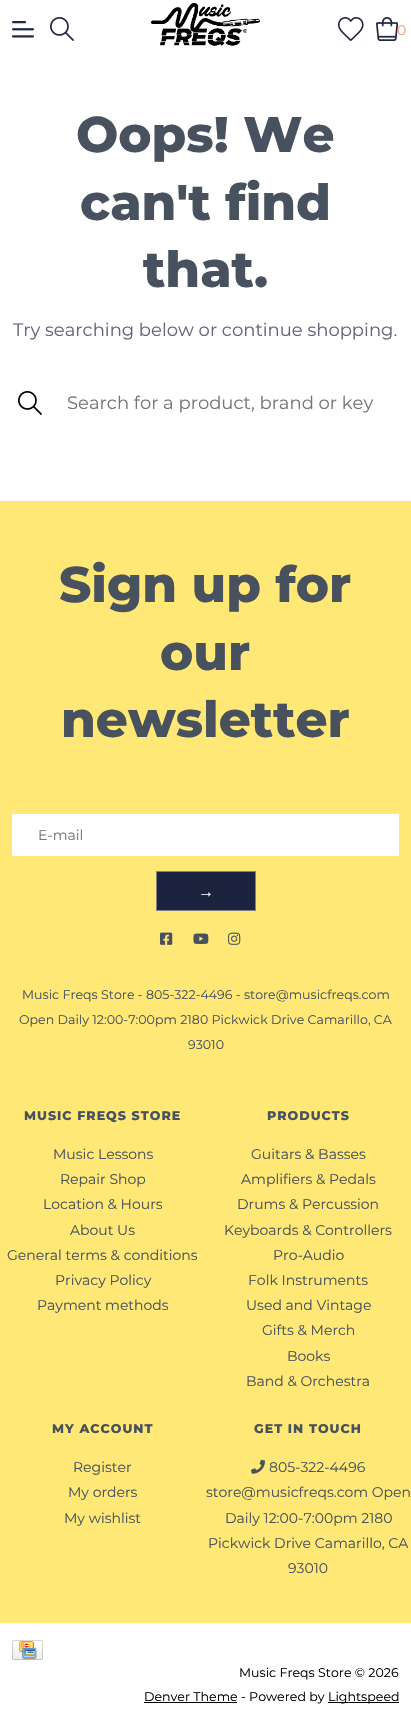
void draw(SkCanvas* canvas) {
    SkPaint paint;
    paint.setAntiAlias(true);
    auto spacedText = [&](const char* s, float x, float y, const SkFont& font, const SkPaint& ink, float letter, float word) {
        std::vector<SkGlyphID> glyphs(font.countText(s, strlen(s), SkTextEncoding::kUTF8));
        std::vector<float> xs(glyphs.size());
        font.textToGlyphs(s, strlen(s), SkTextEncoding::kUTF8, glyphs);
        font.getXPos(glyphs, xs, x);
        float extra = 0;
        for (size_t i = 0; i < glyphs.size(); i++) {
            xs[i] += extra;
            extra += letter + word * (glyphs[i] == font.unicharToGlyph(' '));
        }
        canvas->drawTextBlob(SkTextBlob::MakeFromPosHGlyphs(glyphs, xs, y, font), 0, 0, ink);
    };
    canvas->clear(0xFFFFFFFF);
    canvas->drawImageRect(SkImages::DeferredFromEncodedData(SkData::MakeFromFileName("img1.png")), SkRect::MakeXYWH(12, 21, 22, 17), SkSamplingOptions());
    canvas->drawImageRect(SkImages::DeferredFromEncodedData(SkData::MakeFromFileName("img2.png")), SkRect::MakeXYWH(50, 17, 24, 24), SkSamplingOptions());
    canvas->drawImageRect(SkImages::DeferredFromEncodedData(SkData::MakeFromFileName("img3.png")), SkRect::MakeXYWH(151, 3, 109, 43), SkSamplingOptions());
    canvas->drawImageRect(SkImages::DeferredFromEncodedData(SkData::MakeFromFileName("img4.png")), SkRect::MakeXYWH(338, 17, 26, 24), SkSamplingOptions());
    canvas->drawImageRect(SkImages::DeferredFromEncodedData(SkData::MakeFromFileName("img5.png")), SkRect::MakeXYWH(376, 17, 23, 24), SkSamplingOptions());
    SkFont font1(fontMgr->matchFamilyStyle("Montserrat", SkFontStyle::Normal()), 14);
    font1.setSubpixel(true);
    paint.setColor(0xFFF09A8B);
    canvas->drawString("0", 397, 35, font1, paint);
    SkFont font2(fontMgr->matchFamilyStyle("Montserrat", SkFontStyle(800, SkFontStyle::kNormal_Width, SkFontStyle::kUpright_Slant)), 50);
    font2.setSubpixel(true);
    paint.setColor(0xFF48515E);
    canvas->drawString("Oops! We", 76, 152, font2, paint);
    canvas->drawString("can't find", 80, 220, font2, paint);
    canvas->drawString("that.", 143, 287, font2, paint);
    SkFont font3(fontMgr->matchFamilyStyle("Montserrat", SkFontStyle::Normal()), 18);
    font3.setSubpixel(true);
    paint.setColor(0xFF626577);
    canvas->drawString("Try searching below or continue shopping.", 13, 336, font3, paint);
    canvas->drawImageRect(SkImages::DeferredFromEncodedData(SkData::MakeFromFileName("img6.png")), SkRect::MakeXYWH(18, 391, 24, 24), SkSamplingOptions());
    paint.setColor(0xFF757575);
    canvas->drawString("Search for a product, brand or key", 67, 409, font3, paint);
    paint.setColor(0xFFFFE875);
    canvas->drawRect(SkRect::MakeXYWH(0, 501, 411, 1122), paint);
    paint.setColor(0xFF48515E);
    canvas->drawString("Sign up for", 59, 602, font2, paint);
    canvas->drawString("our", 160, 670, font2, paint);
    canvas->drawString("newsletter", 61, 737, font2, paint);
    paint.setColor(0xFFFFFFFF);
    canvas->drawRect(SkRect::MakeXYWH(12, 814, 387, 42), paint);
    paint.setColor(0xFF757575);
    canvas->drawString("E-mail", 38, 840, font1, paint);
    paint.setColor(0xFF1B233E);
    canvas->drawRect(SkRect::MakeXYWH(156.5f, 871.5f, 99, 39), paint);
    paint.setStyle(SkPaint::kStroke_Style);
    paint.setStrokeWidth(1);
    paint.setColor(0xFF818181);
    canvas->drawRect(SkRect::MakeXYWH(156.5f, 871.5f, 99, 39), paint);
    SkFont font4(fontMgr->matchFamilyStyle("Liberation Sans", SkFontStyle::Normal()), 16);
    font4.setSubpixel(true);
    paint.setStyle(SkPaint::kFill_Style);
    paint.setColor(0xFFFFFFFF);
    canvas->drawString("→", 198, 897, font4, paint);
    canvas->drawImageRect(SkImages::DeferredFromEncodedData(SkData::MakeFromFileName("img7.png")), SkRect::MakeXYWH(160, 932, 13, 13), SkSamplingOptions());
    canvas->drawImageRect(SkImages::DeferredFromEncodedData(SkData::MakeFromFileName("img8.png")), SkRect::MakeXYWH(193, 933, 16, 11), SkSamplingOptions());
    canvas->drawImageRect(SkImages::DeferredFromEncodedData(SkData::MakeFromFileName("img9.png")), SkRect::MakeXYWH(228, 932, 13, 13), SkSamplingOptions());
    SkFont font5(fontMgr->matchFamilyStyle("Montserrat", SkFontStyle::Normal()), 12.6f);
    font5.setSubpixel(true);
    paint.setColor(0xFF48515E);
    canvas->drawString("Music Freqs Store - 805-322-4496 - store@musicfreqs.com", 22, 999, font5, paint);
    canvas->drawString("Open Daily 12:00-7:00pm 2180 Pickwick Drive Camarillo, CA", 19, 1024, font5, paint);
    canvas->drawString("93010", 188, 1049, font5, paint);
    SkFont font6(fontMgr->matchFamilyStyle("Montserrat", SkFontStyle(800, SkFontStyle::kNormal_Width, SkFontStyle::kUpright_Slant)), 12.6f);
    font6.setSubpixel(true);
    spacedText("MUSIC FREQS STORE", 24, 1120, font6, paint, 1, 0);
    canvas->drawString("Music Lessons", 53, 1159, font1, paint);
    canvas->drawString("Repair Shop", 60, 1184, font1, paint);
    canvas->drawString("Location & Hours", 43, 1209, font1, paint);
    canvas->drawString("About Us", 70, 1235, font1, paint);
    canvas->drawString("General terms & conditions", 7, 1260, font1, paint);
    canvas->drawString("Privacy Policy", 55, 1285, font1, paint);
    canvas->drawString("Payment methods", 37, 1310, font1, paint);
    spacedText("PRODUCTS", 267, 1120, font6, paint, 1, 0);
    canvas->drawString("Guitars & Basses", 251, 1159, font1, paint);
    canvas->drawString("Amplifiers & Pedals", 241, 1184, font1, paint);
    canvas->drawString("Drums & Percussion", 237, 1209, font1, paint);
    canvas->drawString("Keyboards & Controllers", 224, 1235, font1, paint);
    canvas->drawString("Pro-Audio", 273, 1260, font1, paint);
    canvas->drawString("Folk Instruments", 248, 1285, font1, paint);
    canvas->drawString("Used and Vintage", 246, 1310, font1, paint);
    canvas->drawString("Gifts & Merch", 262, 1335, font1, paint);
    canvas->drawString("Books", 287, 1361, font1, paint);
    canvas->drawString("Band & Orchestra", 246, 1386, font1, paint);
    spacedText("MY ACCOUNT", 52, 1433, font6, paint, 1, 0);
    canvas->drawString("Register", 73, 1472, font1, paint);
    canvas->drawString("My orders", 68, 1497, font1, paint);
    canvas->drawString("My wishlist", 64, 1523, font1, paint);
    spacedText("GET IN TOUCH", 254, 1433, font6, paint, 1, 0);
    canvas->drawImageRect(SkImages::DeferredFromEncodedData(SkData::MakeFromFileName("img10.png")), SkRect::MakeXYWH(251, 1459, 14, 15), SkSamplingOptions());
    canvas->drawString("805-322-4496", 269, 1472, font1, paint);
    canvas->drawString("store@musicfreqs.com Open", 206, 1497, font1, paint);
    canvas->drawString("Daily 12:00-7:00pm 2180", 225, 1523, font1, paint);
    canvas->drawString("Pickwick Drive Camarillo, CA", 208, 1548, font1, paint);
    canvas->drawString("93010", 288, 1573, font1, paint);
    canvas->drawImageRect(SkImages::DeferredFromEncodedData(SkData::MakeFromFileName("img11.png")), SkRect::MakeXYWH(12, 1640, 31, 20), SkSamplingOptions());
    paint.setColor(0xFF000000);
    canvas->drawString("Music Freqs Store © 2026", 239, 1677, font5, paint);
    canvas->drawRect(SkRect::MakeXYWH(144, 1702, 93, 1), paint);
    canvas->drawString("Denver Theme - Powered by", 144, 1701, font5, paint);
    canvas->drawRect(SkRect::MakeXYWH(328, 1702, 71, 1), paint);
    canvas->drawString("Lightspeed", 328, 1701, font5, paint);
}
